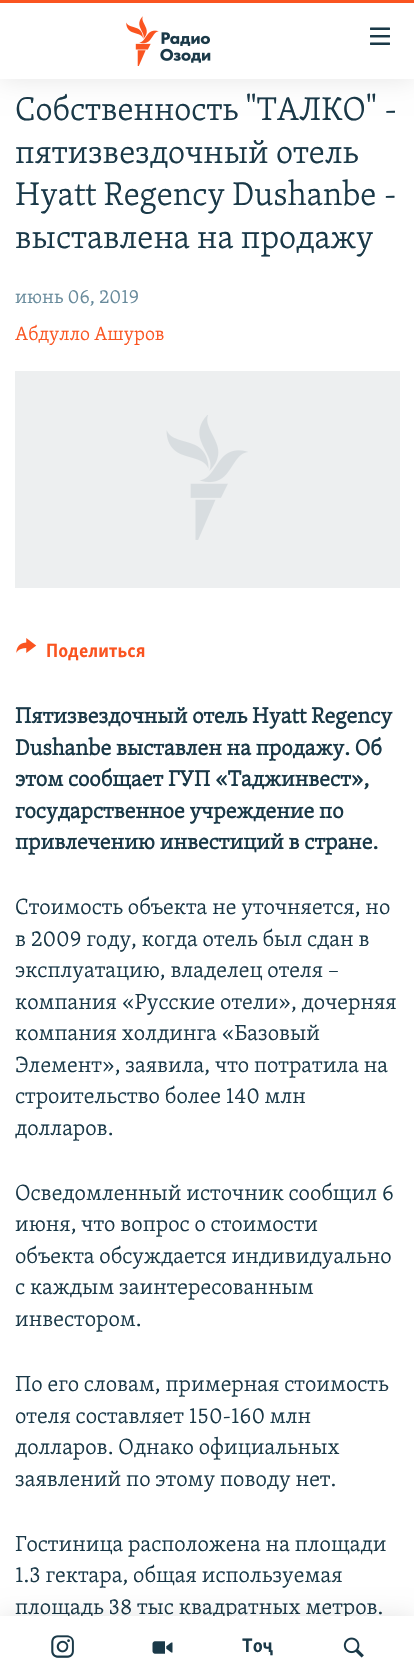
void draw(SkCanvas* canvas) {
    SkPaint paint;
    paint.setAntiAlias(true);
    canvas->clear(0xFFFFFFFF);
    SkFont font1(fontMgr->matchFamilyStyle("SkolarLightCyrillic", SkFontStyle(300, SkFontStyle::kNormal_Width, SkFontStyle::kUpright_Slant)), 33.75f);
    font1.setSubpixel(true);
    paint.setColor(0xFF1A3948);
    canvas->drawString("Собственность \"ТАЛКО\" -", 15, 120, font1, paint);
    canvas->drawString("пятизвездочный отель", 15, 163, font1, paint);
    canvas->drawString("Hyatt Regency Dushanbe -", 15, 205, font1, paint);
    canvas->drawString("выставлена на продажу", 15, 248, font1, paint);
    SkFont font2(fontMgr->matchFamilyStyle("SkolarLightCyrillic", SkFontStyle(300, SkFontStyle::kNormal_Width, SkFontStyle::kUpright_Slant)), 19.75f);
    font2.setSubpixel(true);
    paint.setColor(0xFF678A9B);
    canvas->drawString("июнь 06, 2019", 15, 303, font2, paint);
    paint.setColor(0xFFFA5420);
    canvas->drawString("Абдулло Ашуров", 15, 340, font2, paint);
    paint.setColor(0xFFEDEFF0);
    canvas->drawRect(SkRect::MakeXYWH(15, 371, 385, 217), paint);
    canvas->drawImageRect(SkImages::DeferredFromEncodedData(SkData::MakeFromFileName("img1.png")), SkRect::MakeXYWH(166, 415, 82, 125), SkSamplingOptions());
    canvas->drawImageRect(SkImages::DeferredFromEncodedData(SkData::MakeFromFileName("img2.png")), SkRect::MakeXYWH(16, 638, 21, 15), SkSamplingOptions());
    SkFont font3(fontMgr->matchFamilyStyle("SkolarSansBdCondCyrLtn", SkFontStyle::Bold()), 19.75f);
    font3.setSubpixel(true);
    paint.setColor(0xFFFA5420);
    canvas->drawString("Поделиться", 46, 657, font3, paint);
    SkFont font4(fontMgr->matchFamilyStyle("SkolarLightCyrillic", SkFontStyle::Bold()), 22.5f);
    font4.setSubpixel(true);
    paint.setColor(0xFF1A3948);
    canvas->drawString("Пятизвездочный отель Hyatt Regency", 15, 723, font4, paint);
    canvas->drawString("Dushanbe выставлен на продажу. Об", 15, 755, font4, paint);
    canvas->drawString("этом сообщает ГУП «Таджинвест»,", 15, 786, font4, paint);
    canvas->drawString("государственное учреждение по", 15, 818, font4, paint);
    canvas->drawString("привлечению инвестиций в стране.", 15, 849, font4, paint);
    SkFont font5(fontMgr->matchFamilyStyle("SkolarLightCyrillic", SkFontStyle(300, SkFontStyle::kNormal_Width, SkFontStyle::kUpright_Slant)), 22.5f);
    font5.setSubpixel(true);
    canvas->drawString("Стоимость объекта не уточняется, но", 15, 914, font5, paint);
    canvas->drawString("в 2009 году, когда отель был сдан в", 15, 946, font5, paint);
    canvas->drawString("эксплуатацию, владелец отеля –", 15, 977, font5, paint);
    canvas->drawString("компания «Русские отели», дочерняя", 15, 1009, font5, paint);
    canvas->drawString("компания холдинга «Базовый", 15, 1040, font5, paint);
    canvas->drawString("Элемент», заявила, что потратила на", 15, 1072, font5, paint);
    canvas->drawString("строительство более 140 млн", 15, 1103, font5, paint);
    canvas->drawString("долларов.", 15, 1135, font5, paint);
    canvas->drawString("Осведомленный источник сообщил 6", 15, 1200, font5, paint);
    canvas->drawString("июня, что вопрос о стоимости", 15, 1231, font5, paint);
    canvas->drawString("объекта обсуждается индивидуально", 15, 1263, font5, paint);
    canvas->drawString("с каждым заинтересованным", 15, 1294, font5, paint);
    canvas->drawString("инвестором.", 15, 1326, font5, paint);
    canvas->drawString("По его словам, примерная стоимость", 15, 1391, font5, paint);
    canvas->drawString("отеля составляет 150-160 млн", 15, 1423, font5, paint);
    canvas->drawString("долларов. Однако официальных", 15, 1454, font5, paint);
    canvas->drawString("заявлений по этому поводу нет.", 15, 1486, font5, paint);
    canvas->drawString("Гостиница расположена на площади", 15, 1551, font5, paint);
    canvas->drawString("1.3 гектара, общая используемая", 15, 1582, font5, paint);
    canvas->drawString("площадь 38 тыс квадратных метров.", 15, 1614, font5, paint);
    paint.setColor(0x1A000000);
    paint.setMaskFilter(SkMaskFilter::MakeBlur(kNormal_SkBlurStyle, 12.5f));
    canvas->drawRect(SkRect::MakeXYWH(0, 0, 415, 79), paint);
    paint.setMaskFilter(nullptr);
    paint.setColor(0xFFFFFFFF);
    canvas->drawRect(SkRect::MakeXYWH(0, 3, 414, 76), paint);
    paint.setColor(0xFFFA5420);
    canvas->drawRect(SkRect::MakeXYWH(0, 0, 414, 3), paint);
    canvas->drawImageRect(SkImages::DeferredFromEncodedData(SkData::MakeFromFileName("img3.png")), SkRect::MakeXYWH(126, 16, 85, 50), SkSamplingOptions());
    canvas->drawImageRect(SkImages::DeferredFromEncodedData(SkData::MakeFromFileName("img4.png")), SkRect::MakeXYWH(370, 27, 20, 18), SkSamplingOptions());
    paint.setColor(0x1A000000);
    paint.setMaskFilter(SkMaskFilter::MakeBlur(kNormal_SkBlurStyle, 12.5f));
    canvas->drawRect(SkRect::MakeXYWH(0, 1616, 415, 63), paint);
    paint.setMaskFilter(nullptr);
    paint.setColor(0xFFFFFFFF);
    canvas->drawRect(SkRect::MakeXYWH(0, 1616, 414, 62), paint);
    canvas->drawImageRect(SkImages::DeferredFromEncodedData(SkData::MakeFromFileName("img5.png")), SkRect::MakeXYWH(51, 1635, 23, 23), SkSamplingOptions());
    canvas->drawImageRect(SkImages::DeferredFromEncodedData(SkData::MakeFromFileName("img6.png")), SkRect::MakeXYWH(152, 1641, 21, 13), SkSamplingOptions());
    SkFont font6(fontMgr->matchFamilyStyle("SkolarSansBdCondCyrLtn", SkFontStyle::Bold()), 20);
    font6.setSubpixel(true);
    paint.setColor(0xFF1A3948);
    canvas->drawString("Тоҷ", 242, 1652, font6, paint);
    canvas->drawImageRect(SkImages::DeferredFromEncodedData(SkData::MakeFromFileName("img7.png")), SkRect::MakeXYWH(343, 1637, 21, 21), SkSamplingOptions());
}
